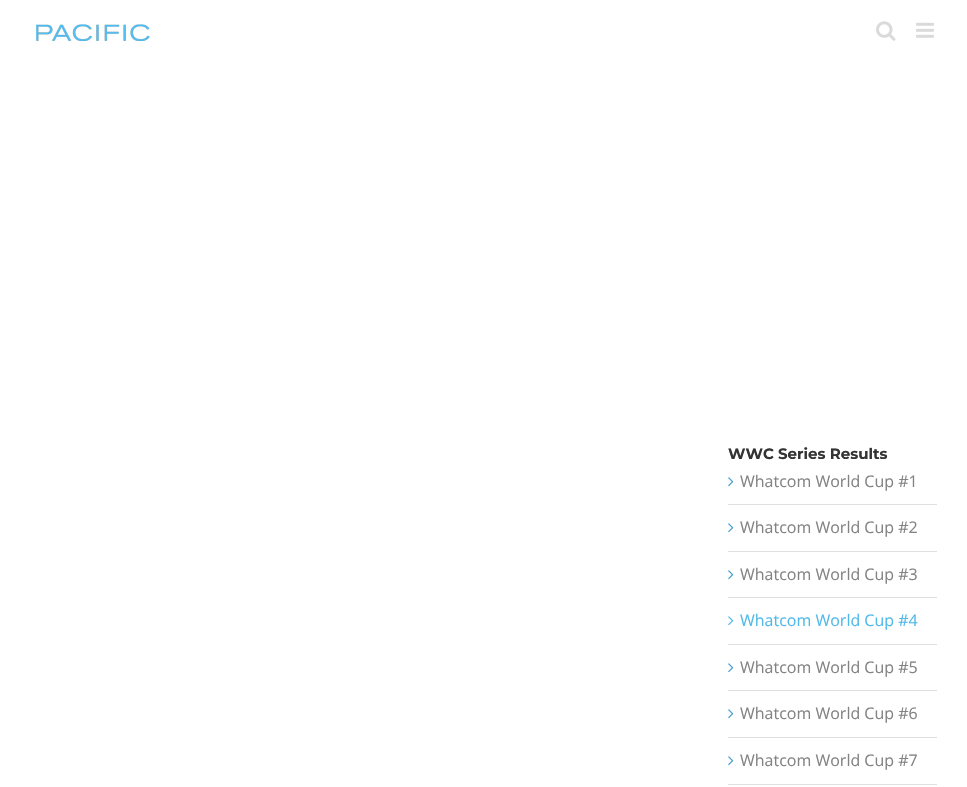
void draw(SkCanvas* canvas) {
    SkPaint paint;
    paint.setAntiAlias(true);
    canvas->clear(0xFFFFFFFF);
    canvas->drawImageRect(SkImages::DeferredFromEncodedData(SkData::MakeFromFileName("img1.png")), SkRect::MakeXYWH(36, 24, 114, 18), SkSamplingOptions());
    canvas->drawImageRect(SkImages::DeferredFromEncodedData(SkData::MakeFromFileName("img2.png")), SkRect::MakeXYWH(876, 21, 20, 20), SkSamplingOptions());
    canvas->drawImageRect(SkImages::DeferredFromEncodedData(SkData::MakeFromFileName("img3.png")), SkRect::MakeXYWH(916, 22, 18, 16), SkSamplingOptions());
    SkFont font1(fontMgr->matchFamilyStyle("Montserrat", SkFontStyle(100, SkFontStyle::kNormal_Width, SkFontStyle::kUpright_Slant)), 15);
    font1.setSubpixel(true);
    paint.setColor(0xFF333333);
    canvas->drawString("WWC Series Results", 728, 459, font1, paint);
    paint.setColor(0xFFE0DEDE);
    canvas->drawRect(SkRect::MakeXYWH(728, 504, 209, 1), paint);
    canvas->drawImageRect(SkImages::DeferredFromEncodedData(SkData::MakeFromFileName("img4.png")), SkRect::MakeXYWH(728, 477, 6, 10), SkSamplingOptions());
    SkFont font2(fontMgr->matchFamilyStyle("Open Sans", SkFontStyle::Normal()), 16);
    font2.setSubpixel(true);
    paint.setColor(0xFF838383);
    canvas->drawString("Whatcom World Cup #1", 740, 487, font2, paint);
    paint.setColor(0xFFE0DEDE);
    canvas->drawRect(SkRect::MakeXYWH(728, 551, 209, 1), paint);
    canvas->drawImageRect(SkImages::DeferredFromEncodedData(SkData::MakeFromFileName("img4.png")), SkRect::MakeXYWH(728, 523, 6, 10), SkSamplingOptions());
    paint.setColor(0xFF838383);
    canvas->drawString("Whatcom World Cup #2", 740, 533, font2, paint);
    paint.setColor(0xFFE0DEDE);
    canvas->drawRect(SkRect::MakeXYWH(728, 597, 209, 1), paint);
    canvas->drawImageRect(SkImages::DeferredFromEncodedData(SkData::MakeFromFileName("img4.png")), SkRect::MakeXYWH(728, 570, 6, 10), SkSamplingOptions());
    paint.setColor(0xFF838383);
    canvas->drawString("Whatcom World Cup #3", 740, 580, font2, paint);
    paint.setColor(0xFFE0DEDE);
    canvas->drawRect(SkRect::MakeXYWH(728, 644, 209, 1), paint);
    canvas->drawImageRect(SkImages::DeferredFromEncodedData(SkData::MakeFromFileName("img5.png")), SkRect::MakeXYWH(728, 616, 6, 10), SkSamplingOptions());
    paint.setColor(0xFF51B9EA);
    canvas->drawString("Whatcom World Cup #4", 740, 626, font2, paint);
    paint.setColor(0xFFE0DEDE);
    canvas->drawRect(SkRect::MakeXYWH(728, 690, 209, 1), paint);
    canvas->drawImageRect(SkImages::DeferredFromEncodedData(SkData::MakeFromFileName("img4.png")), SkRect::MakeXYWH(728, 663, 6, 10), SkSamplingOptions());
    paint.setColor(0xFF838383);
    canvas->drawString("Whatcom World Cup #5", 740, 673, font2, paint);
    paint.setColor(0xFFE0DEDE);
    canvas->drawRect(SkRect::MakeXYWH(728, 737, 209, 1), paint);
    canvas->drawImageRect(SkImages::DeferredFromEncodedData(SkData::MakeFromFileName("img4.png")), SkRect::MakeXYWH(728, 709, 6, 10), SkSamplingOptions());
    paint.setColor(0xFF838383);
    canvas->drawString("Whatcom World Cup #6", 740, 719, font2, paint);
    paint.setColor(0xFFE0DEDE);
    canvas->drawRect(SkRect::MakeXYWH(728, 784, 209, 1), paint);
    canvas->drawImageRect(SkImages::DeferredFromEncodedData(SkData::MakeFromFileName("img4.png")), SkRect::MakeXYWH(728, 756, 6, 10), SkSamplingOptions());
    paint.setColor(0xFF838383);
    canvas->drawString("Whatcom World Cup #7", 740, 766, font2, paint);
}
